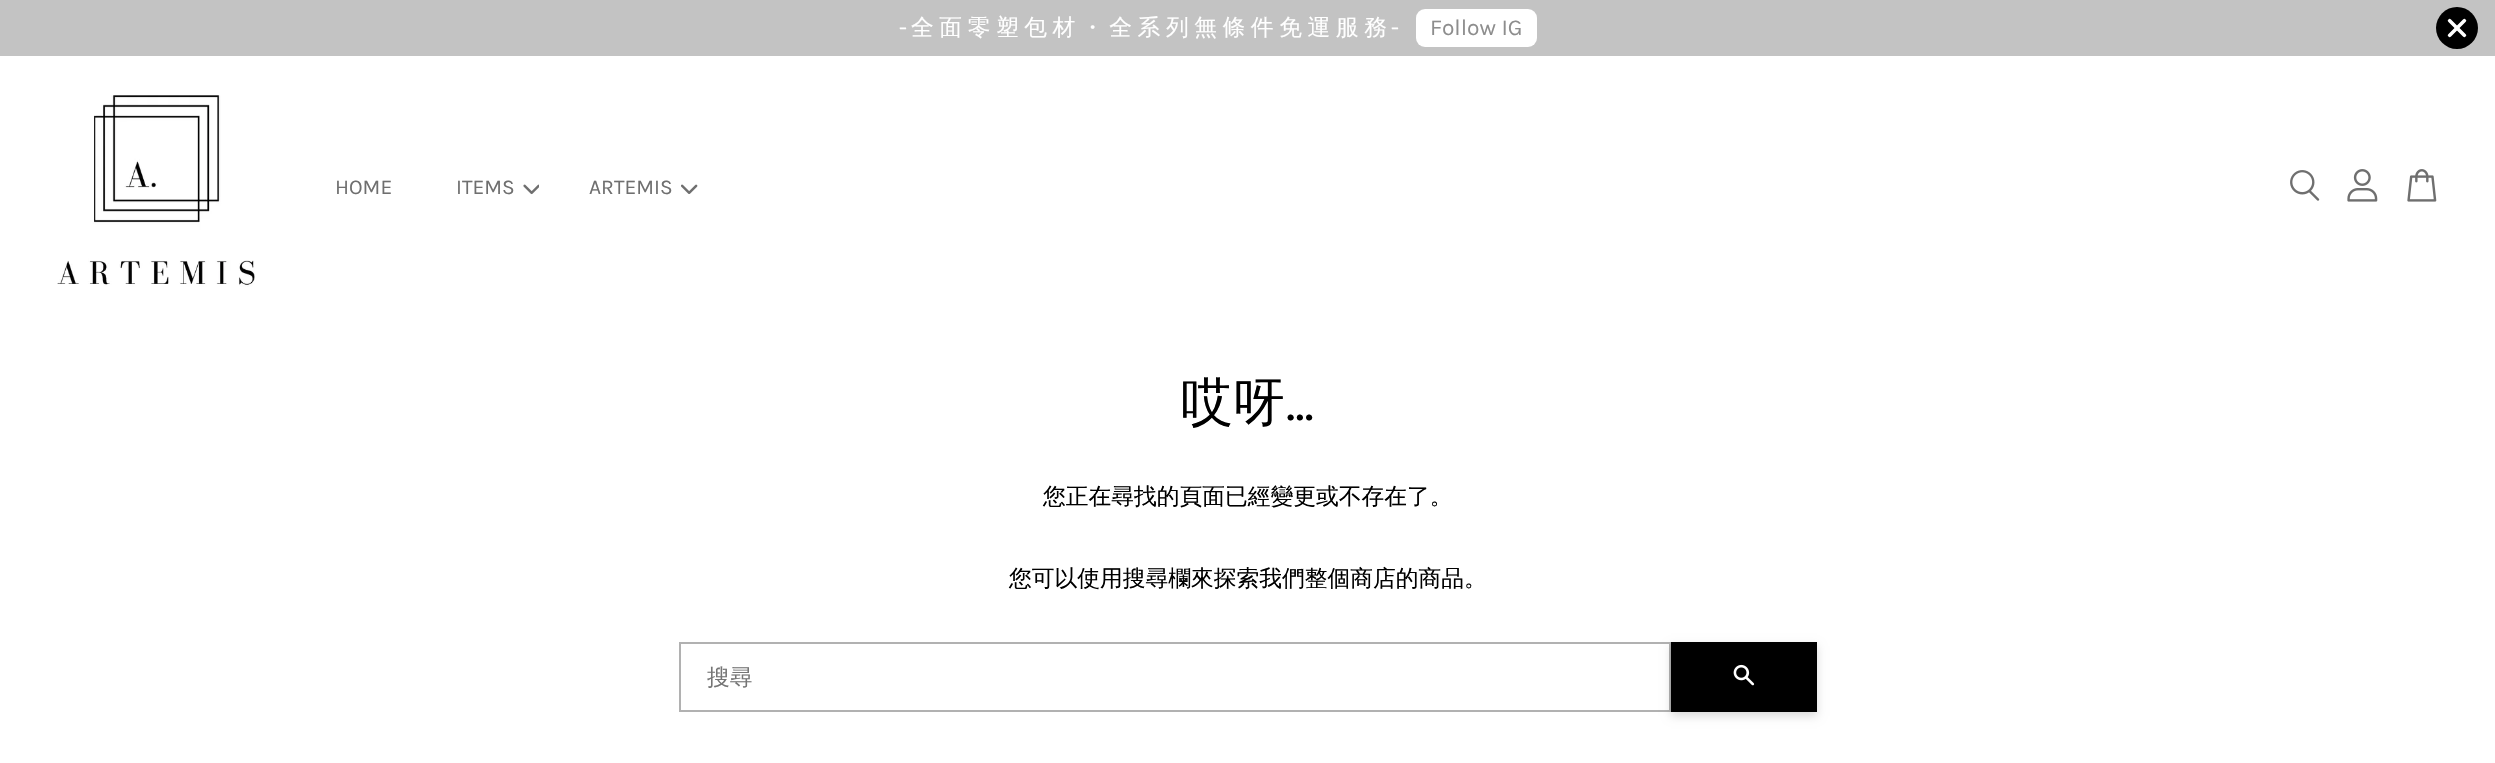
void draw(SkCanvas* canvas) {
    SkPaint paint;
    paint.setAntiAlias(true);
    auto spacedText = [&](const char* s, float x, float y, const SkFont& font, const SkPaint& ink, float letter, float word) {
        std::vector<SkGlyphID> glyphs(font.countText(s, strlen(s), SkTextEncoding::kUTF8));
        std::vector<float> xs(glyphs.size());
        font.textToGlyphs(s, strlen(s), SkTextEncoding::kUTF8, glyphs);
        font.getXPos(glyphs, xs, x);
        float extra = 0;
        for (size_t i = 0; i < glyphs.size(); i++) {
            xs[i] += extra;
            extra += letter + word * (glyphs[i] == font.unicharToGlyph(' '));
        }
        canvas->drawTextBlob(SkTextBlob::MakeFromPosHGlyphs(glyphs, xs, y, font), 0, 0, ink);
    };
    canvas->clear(0xFFFFFFFF);
    paint.setColor(0xFFC3C3C3);
    canvas->drawRect(SkRect::MakeXYWH(0, 0, 2495, 56), paint);
    SkFont font1(fontMgr->matchFamilyStyle("Karla", SkFontStyle::Normal()), 22.75f);
    font1.setSubpixel(true);
    paint.setColor(0xFFFFFFFF);
    canvas->drawString("-", 899, 35, font1, paint);
    SkFont font2(fontMgr->matchFamilyStyle("WenQuanYi Zen Hei", SkFontStyle(500, SkFontStyle::kNormal_Width, SkFontStyle::kUpright_Slant)), 22.75f);
    font2.setSubpixel(true);
    spacedText("全 面 零 塑 包 材 ・ 全 系 列 無 條 件 免 運 服 務", 911, 35, font2, paint, 0, -1.25f);
    canvas->drawString("-", 1391, 35, font1, paint);
    canvas->drawRoundRect(SkRect::MakeXYWH(1416, 9, 121, 38), 9, 9, paint);
    paint.setColor(0xFF8D8D8D);
    canvas->drawString("Follow IG", 1430, 35, font1, paint);
    paint.setColor(0xFF000000);
    canvas->drawCircle(2457, 28, 21, paint);
    paint.setColor(0xFFFFFFFF);
    canvas->drawPath(SkPathBuilder().moveTo(2465.5f, 19.5f).cubicTo(2466.5f, 20, 2466.5f, 21, 2465.5f, 22).lineTo(2451, 36.5f).cubicTo(2450, 37.5f, 2449, 37.5f, 2448.5f, 36.5f).cubicTo(2447.5f, 36, 2447.5f, 35, 2448.5f, 34).lineTo(2463, 19.5f).cubicTo(2464, 18.5f, 2465, 18.5f, 2465.5f, 19.5f).close().detach(), paint);
    canvas->drawPath(SkPathBuilder().moveTo(2448.5f, 19.5f).cubicTo(2449, 18.5f, 2450, 18.5f, 2451, 19.5f).lineTo(2465.5f, 34).cubicTo(2466.5f, 35, 2466.5f, 36, 2465.5f, 36.5f).cubicTo(2465, 37.5f, 2464, 37.5f, 2463, 36.5f).lineTo(2448.5f, 22).cubicTo(2447.5f, 21, 2447.5f, 20, 2448.5f, 19.5f).close().detach(), paint);
    canvas->drawImageRect(SkImages::DeferredFromEncodedData(SkData::MakeFromFileName("img1.png")), SkRect::MakeXYWH(57, 95, 198, 192), SkSamplingOptions());
    SkFont font3(fontMgr->matchFamilyStyle("Karla", SkFontStyle::Normal()), 21);
    font3.setSubpixel(true);
    paint.setColor(0xFF6F6F6F);
    canvas->drawString("HOME", 335, 194, font3, paint);
    canvas->drawString("ITEMS", 456, 194, font3, paint);
    canvas->drawImageRect(SkImages::DeferredFromEncodedData(SkData::MakeFromFileName("img2.png")), SkRect::MakeXYWH(523, 184, 16, 11), SkSamplingOptions());
    canvas->drawString("ARTEMIS", 589, 194, font3, paint);
    canvas->drawImageRect(SkImages::DeferredFromEncodedData(SkData::MakeFromFileName("img3.png")), SkRect::MakeXYWH(681, 184, 17, 10), SkSamplingOptions());
    canvas->drawImageRect(SkImages::DeferredFromEncodedData(SkData::MakeFromFileName("img4.png")), SkRect::MakeXYWH(2290, 170, 30, 31), SkSamplingOptions());
    canvas->drawImageRect(SkImages::DeferredFromEncodedData(SkData::MakeFromFileName("img5.png")), SkRect::MakeXYWH(2347, 169, 31, 33), SkSamplingOptions());
    canvas->drawImageRect(SkImages::DeferredFromEncodedData(SkData::MakeFromFileName("img6.png")), SkRect::MakeXYWH(2407, 169, 30, 33), SkSamplingOptions());
    SkFont font4(fontMgr->matchFamilyStyle("WenQuanYi Zen Hei", SkFontStyle(500, SkFontStyle::kNormal_Width, SkFontStyle::kUpright_Slant)), 52);
    font4.setSubpixel(true);
    paint.setColor(0xFF000000);
    canvas->drawString("哎呀", 1181, 420, font4, paint);
    SkFont font5(fontMgr->matchFamilyStyle("Karla", SkFontStyle::Normal()), 52);
    font5.setSubpixel(true);
    canvas->drawString("...", 1286, 420, font5, paint);
    canvas->drawString("您正在尋找的頁面已經變更或不存在了。", 1043, 504, font2, paint);
    canvas->drawString("您可以使用搜尋欄來探索我們整個商店的商品。", 1009, 586, font2, paint);
    paint.setStyle(SkPaint::kStroke_Style);
    paint.setStrokeWidth(2);
    paint.setColor(0xFFB1B1B1);
    canvas->drawRect(SkRect::MakeXYWH(680, 643, 990, 68), paint);
    paint.setStyle(SkPaint::kFill_Style);
    paint.setColor(0xFF757575);
    canvas->drawString("搜尋", 707, 685, font2, paint);
    paint.setColor(0x26000000);
    paint.setMaskFilter(SkMaskFilter::MakeBlur(kNormal_SkBlurStyle, 4.5f));
    canvas->drawRect(SkRect::MakeXYWH(1671, 646, 146, 70), paint);
    paint.setMaskFilter(nullptr);
    paint.setColor(0xFF000000);
    canvas->drawRect(SkRect::MakeXYWH(1671, 642, 146, 70), paint);
    canvas->drawImageRect(SkImages::DeferredFromEncodedData(SkData::MakeFromFileName("img7.png")), SkRect::MakeXYWH(1733, 664, 22, 22), SkSamplingOptions());
}
